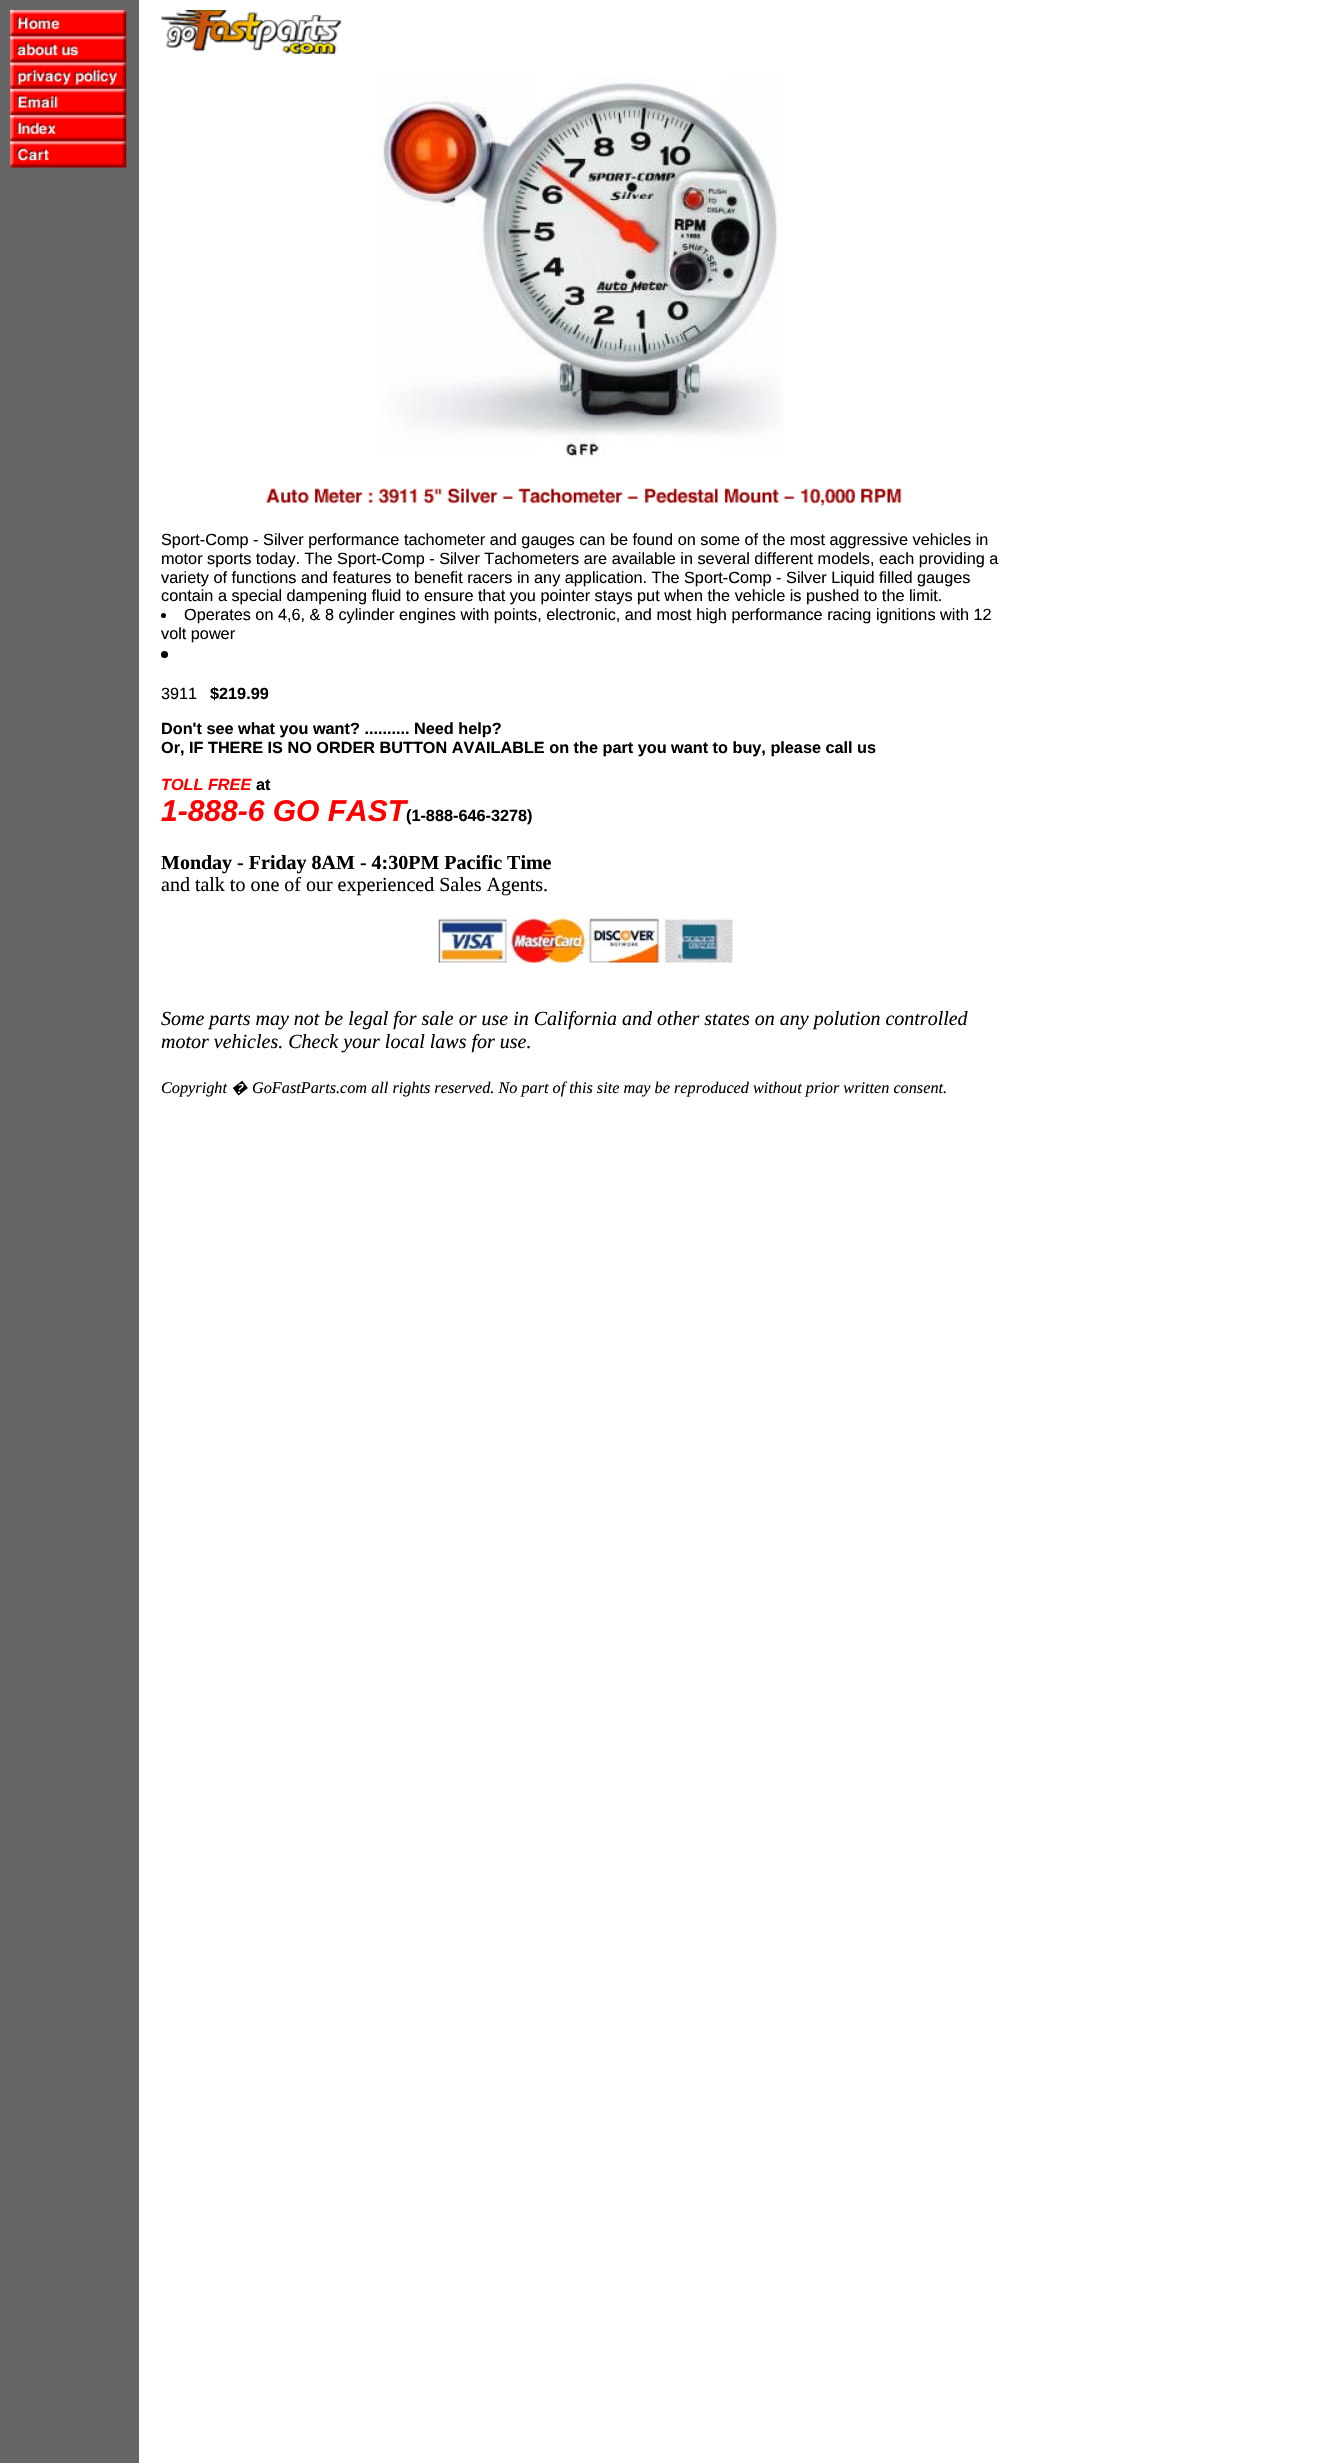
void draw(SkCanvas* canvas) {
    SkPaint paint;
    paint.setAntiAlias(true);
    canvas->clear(0xFFFFFFFF);
    paint.setColor(0xFF666666);
    canvas->drawRect(SkRect::MakeXYWH(0, 0, 139, 2463), paint);
    canvas->drawImageRect(SkImages::DeferredFromEncodedData(SkData::MakeFromFileName("img1.png")), SkRect::MakeXYWH(10, 10, 117, 158), SkSamplingOptions());
    canvas->drawImageRect(SkImages::DeferredFromEncodedData(SkData::MakeFromFileName("img2.png")), SkRect::MakeXYWH(161, 10, 181, 44), SkSamplingOptions());
    canvas->drawImageRect(SkImages::DeferredFromEncodedData(SkData::MakeFromFileName("img3.png")), SkRect::MakeXYWH(377, 76, 407, 381), SkSamplingOptions());
    canvas->drawImageRect(SkImages::DeferredFromEncodedData(SkData::MakeFromFileName("img4.png")), SkRect::MakeXYWH(266, 488, 636, 19), SkSamplingOptions());
    SkFont font1(fontMgr->matchFamilyStyle("Liberation Sans", SkFontStyle::Normal()), 16.25f);
    font1.setSubpixel(true);
    paint.setColor(0xFF000000);
    canvas->drawString("Sport-Comp - Silver performance tachometer and gauges can be found on some of the most aggressive vehicles in", 161, 545, font1, paint);
    canvas->drawString("motor sports today. The Sport-Comp - Silver Tachometers are available in several different models, each providing a", 161, 564, font1, paint);
    canvas->drawString("variety of functions and features to benefit racers in any application. The Sport-Comp - Silver Liquid filled gauges", 161, 583, font1, paint);
    canvas->drawString("contain a special dampening fluid to ensure that you pointer stays put when the vehicle is pushed to the limit.", 161, 601, font1, paint);
    canvas->drawCircle(163.5f, 615.5f, 2.5f, paint);
    canvas->drawString("Operates on 4,6, & 8 cylinder engines with points, electronic, and most high performance racing ignitions with 12", 184, 620, font1, paint);
    canvas->drawString("volt power", 161, 639, font1, paint);
    canvas->drawCircle(164.5f, 654.5f, 3.5f, paint);
    canvas->drawString("3911", 161, 699, font1, paint);
    SkFont font2(fontMgr->matchFamilyStyle("Liberation Sans", SkFontStyle::Bold()), 16.25f);
    font2.setSubpixel(true);
    canvas->drawString("$219.99", 210, 699, font2, paint);
    canvas->drawString("Don't see what you want? .......... Need help?", 161, 734, font2, paint);
    canvas->drawString("Or, IF THERE IS NO ORDER BUTTON AVAILABLE on the part you want to buy, please call us", 161, 753, font2, paint);
    SkFont font3(fontMgr->matchFamilyStyle("Liberation Sans", SkFontStyle::BoldItalic()), 16.25f);
    font3.setSubpixel(true);
    paint.setColor(0xFFFF0000);
    canvas->drawString("TOLL FREE", 161, 790, font3, paint);
    paint.setColor(0xFF000000);
    canvas->drawString("at", 256, 790, font2, paint);
    SkFont font4(fontMgr->matchFamilyStyle("Liberation Sans", SkFontStyle::BoldItalic()), 30);
    font4.setSubpixel(true);
    paint.setColor(0xFFFF0000);
    canvas->drawString("1-888-6 GO FAST", 161, 821, font4, paint);
    paint.setColor(0xFF000000);
    canvas->drawString("(1-888-646-3278)", 406, 821, font2, paint);
    SkFont font5(fontMgr->matchFamilyStyle("Liberation Serif", SkFontStyle::Bold()), 20);
    font5.setSubpixel(true);
    canvas->drawString("Monday - Friday 8AM - 4:30PM Pacific Time", 161, 869, font5, paint);
    SkFont font6(fontMgr->matchFamilyStyle("Liberation Serif", SkFontStyle::Normal()), 20);
    font6.setSubpixel(true);
    canvas->drawString("and talk to one of our experienced Sales Agents.", 161, 891, font6, paint);
    canvas->drawImageRect(SkImages::DeferredFromEncodedData(SkData::MakeFromFileName("img5.png")), SkRect::MakeXYWH(438, 918, 295, 45), SkSamplingOptions());
    SkFont font7(fontMgr->matchFamilyStyle("Liberation Serif", SkFontStyle::Italic()), 20);
    font7.setSubpixel(true);
    canvas->drawString("Some parts may not be legal for sale or use in California and other states on any polution controlled", 161, 1025, font7, paint);
    canvas->drawString("motor vehicles. Check your local laws for use.", 161, 1048, font7, paint);
    SkFont font8(fontMgr->matchFamilyStyle("Liberation Serif", SkFontStyle::Italic()), 16.25f);
    font8.setSubpixel(true);
    canvas->drawString("Copyright", 161, 1093, font8, paint);
    SkFont font9(fontMgr->matchFamilyStyle("Noto Sans", SkFontStyle::Italic()), 16.25f);
    font9.setSubpixel(true);
    canvas->drawString("�", 231, 1093, font9, paint);
    canvas->drawString("GoFastParts.com all rights reserved. No part of this site may be reproduced without prior written consent.", 252, 1093, font8, paint);
}
